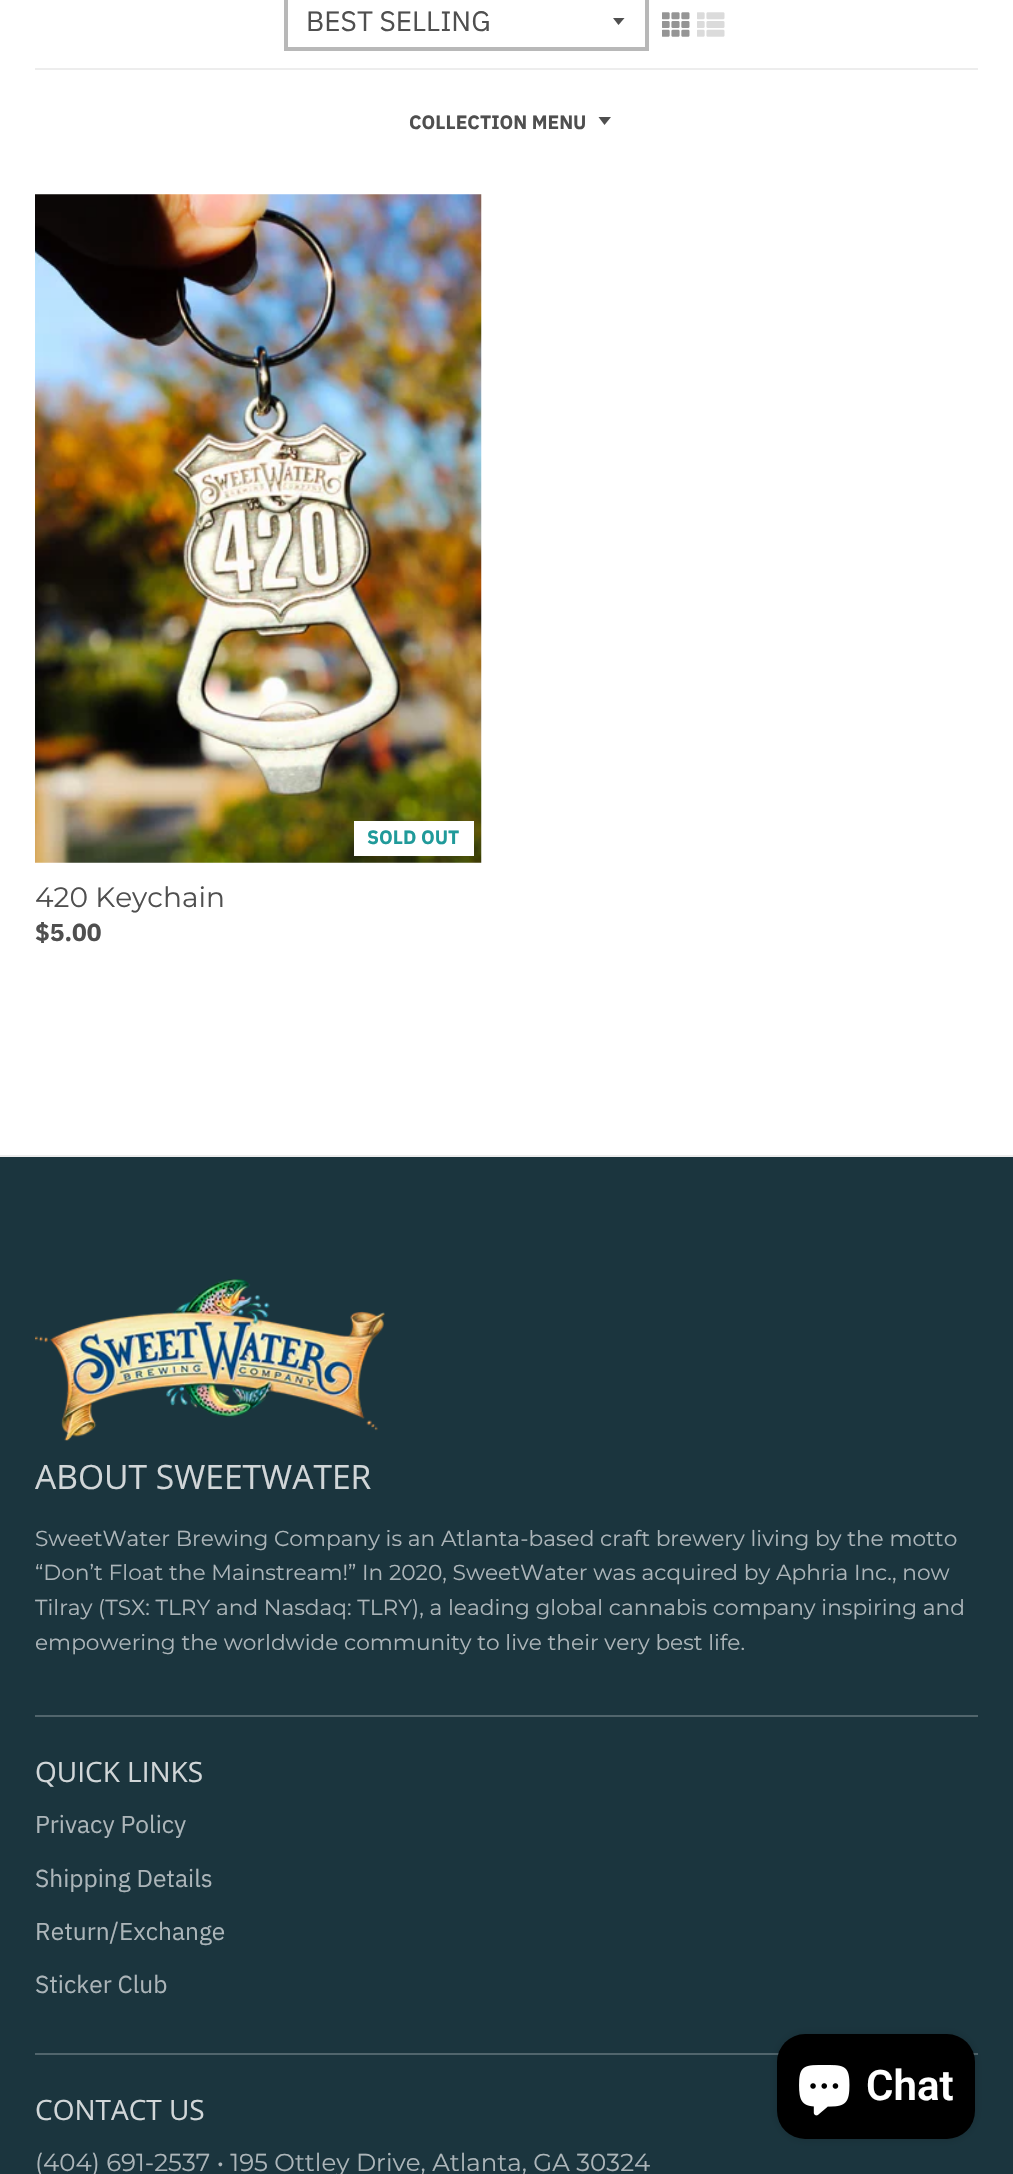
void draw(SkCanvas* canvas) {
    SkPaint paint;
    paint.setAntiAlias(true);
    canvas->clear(0xFFFFFFFF);
    paint.setColor(0xFFEDEDED);
    canvas->drawRect(SkRect::MakeXYWH(0, 1155, 1013, 2), paint);
    canvas->drawRect(SkRect::MakeXYWH(35, 68, 943, 2), paint);
    canvas->save();
    canvas->clipRect(SkRect::MakeXYWH(613, 18, 14, 8));
    paint.setColor(0xFF4F4F4F);
    canvas->drawPath(SkPathBuilder().moveTo(612.5f, 17.5f).lineTo(618.5f, 25).lineTo(625, 17.5f).close().detach(), paint);
    canvas->restore();
    paint.setStyle(SkPaint::kStroke_Style);
    paint.setStrokeWidth(4);
    paint.setColor(0xFFB8B8B8);
    canvas->drawRect(SkRect::MakeXYWH(286, -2, 361, 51), paint);
    SkFont font1(fontMgr->matchFamilyStyle("IBM Plex Sans", SkFontStyle::Normal()), 28);
    font1.setSubpixel(true);
    paint.setStyle(SkPaint::kFill_Style);
    paint.setColor(0xFF4F4F4F);
    canvas->drawString("BEST SELLING", 306, 31, font1, paint);
    canvas->drawImageRect(SkImages::DeferredFromEncodedData(SkData::MakeFromFileName("img1.png")), SkRect::MakeXYWH(662, 12, 28, 25), SkSamplingOptions());
    canvas->drawImageRect(SkImages::DeferredFromEncodedData(SkData::MakeFromFileName("img2.png")), SkRect::MakeXYWH(697, 12, 28, 25), SkSamplingOptions());
    SkFont font2(fontMgr->matchFamilyStyle("IBM Plex Sans", SkFontStyle::Bold()), 19.25f);
    font2.setSubpixel(true);
    canvas->drawString("COLLECTION MENU", 409, 129, font2, paint);
    canvas->drawPath(SkPathBuilder().moveTo(598.5f, 117).lineTo(604.5f, 125).lineTo(611, 117).close().detach(), paint);
    canvas->drawImageRect(SkImages::DeferredFromEncodedData(SkData::MakeFromFileName("img3.png")), SkRect::MakeXYWH(35, 194, 447, 669), SkSamplingOptions());
    paint.setColor(0xFFFFFFFF);
    canvas->drawRect(SkRect::MakeXYWH(354, 821, 120, 35), paint);
    paint.setColor(0xFF209A9A);
    canvas->drawString("SOLD OUT", 367, 844, font2, paint);
    SkFont font3(fontMgr->matchFamilyStyle("Montserrat", SkFontStyle::Normal()), 28);
    font3.setSubpixel(true);
    paint.setColor(0xFF4F4F4F);
    canvas->drawString("420 Keychain", 35, 907, font3, paint);
    SkFont font4(fontMgr->matchFamilyStyle("IBM Plex Sans", SkFontStyle::Bold()), 24.5f);
    font4.setSubpixel(true);
    canvas->drawString("$5.00", 35, 941, font4, paint);
    paint.setColor(0xFF1B353E);
    canvas->drawRect(SkRect::MakeXYWH(0, 1157, 1013, 1017), paint);
    canvas->drawImageRect(SkImages::DeferredFromEncodedData(SkData::MakeFromFileName("img4.png")), SkRect::MakeXYWH(35, 1279, 350, 162), SkSamplingOptions());
    SkFont font5(fontMgr->matchFamilyStyle("Open Sans", SkFontStyle::Normal()), 33.6f);
    font5.setSubpixel(true);
    paint.setColor(0xFFD1D6D8);
    canvas->drawString("ABOUT SWEETWATER", 35, 1489, font5, paint);
    paint.setColor(0xFF51656C);
    canvas->drawRect(SkRect::MakeXYWH(35, 1715, 943, 2), paint);
    SkFont font6(fontMgr->matchFamilyStyle("Montserrat", SkFontStyle::Normal()), 21.7f);
    font6.setSubpixel(true);
    paint.setColor(0xFFACB5B9);
    canvas->drawString("SweetWater Brewing Company is an Atlanta-based craft brewery living by the motto", 35, 1546, font6, paint);
    canvas->drawString("“Don’t Float the Mainstream!” In 2020, SweetWater was acquired by Aphria Inc., now", 35, 1580, font6, paint);
    canvas->drawString("Tilray (TSX: TLRY and Nasdaq: TLRY), a leading global cannabis company inspiring and", 35, 1615, font6, paint);
    canvas->drawString("empowering the worldwide community to live their very best life.", 35, 1650, font6, paint);
    SkFont font7(fontMgr->matchFamilyStyle("Open Sans", SkFontStyle::Normal()), 28);
    font7.setSubpixel(true);
    paint.setColor(0xFFD1D6D8);
    canvas->drawString("QUICK LINKS", 35, 1782, font7, paint);
    paint.setColor(0xFF51656C);
    canvas->drawRect(SkRect::MakeXYWH(35, 2053, 943, 2), paint);
    SkFont font8(fontMgr->matchFamilyStyle("IBM Plex Sans", SkFontStyle::Normal()), 24.5f);
    font8.setSubpixel(true);
    paint.setColor(0xFFACB5B9);
    canvas->drawString("Privacy Policy", 35, 1833, font8, paint);
    canvas->drawString("Shipping Details", 35, 1887, font8, paint);
    canvas->drawString("Return/Exchange", 35, 1940, font8, paint);
    canvas->drawString("Sticker Club", 35, 1993, font8, paint);
    paint.setColor(0xFFD1D6D8);
    canvas->drawString("CONTACT US", 35, 2120, font7, paint);
    SkFont font9(fontMgr->matchFamilyStyle("Montserrat", SkFontStyle::Normal()), 24.5f);
    font9.setSubpixel(true);
    paint.setColor(0xFFACB5B9);
    canvas->drawString("(404) 691-2537 • 195 Ottley Drive, Atlanta, GA 30324", 35, 2171, font9, paint);
    paint.setColor(0x26000000);
    paint.setMaskFilter(SkMaskFilter::MakeBlur(kNormal_SkBlurStyle, 4.5f));
    canvas->drawRoundRect(SkRect::MakeXYWH(777, 2034, 198, 105), 28, 28, paint);
    paint.setMaskFilter(nullptr);
    paint.setColor(0xFF000000);
    canvas->drawRoundRect(SkRect::MakeXYWH(777, 2034, 198, 105), 28, 28, paint);
    canvas->drawImageRect(SkImages::DeferredFromEncodedData(SkData::MakeFromFileName("img5.png")), SkRect::MakeXYWH(799, 2065, 51, 51), SkSamplingOptions());
    SkFont font10(fontMgr->matchFamilyStyle("Roboto", SkFontStyle(600, SkFontStyle::kNormal_Width, SkFontStyle::kUpright_Slant)), 42);
    font10.setSubpixel(true);
    paint.setColor(0xFFFFFFFF);
    canvas->drawString("Chat", 866, 2100, font10, paint);
}
